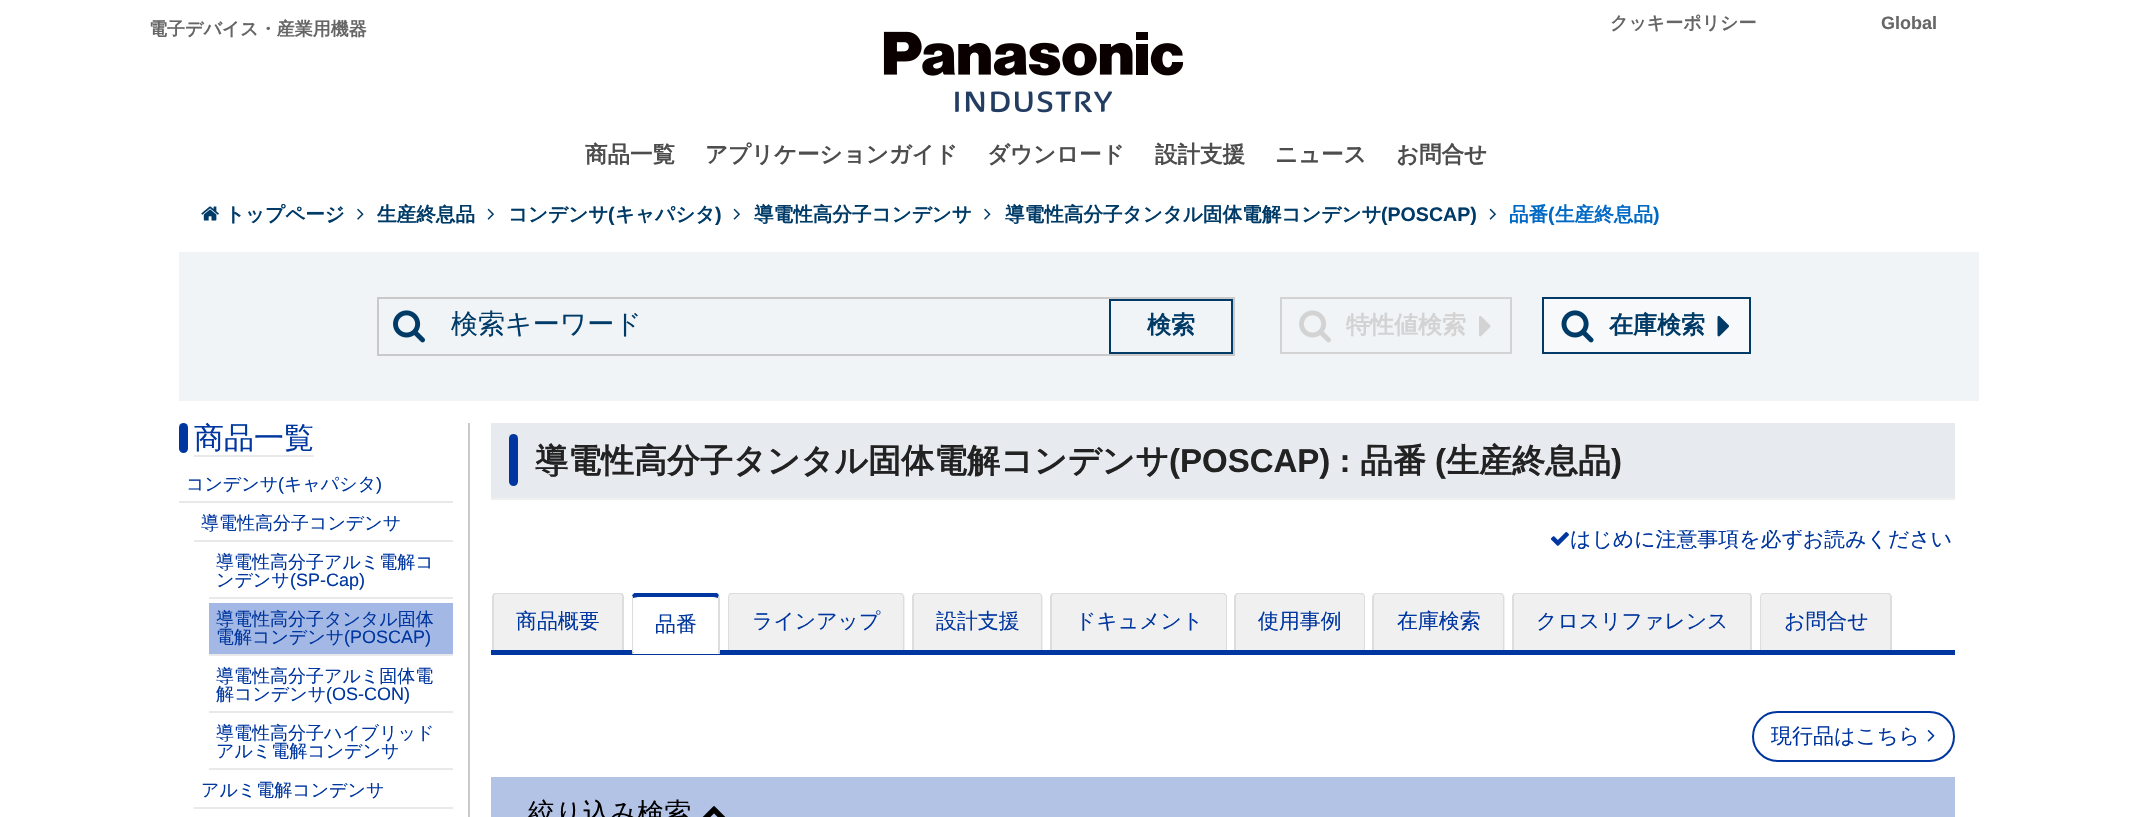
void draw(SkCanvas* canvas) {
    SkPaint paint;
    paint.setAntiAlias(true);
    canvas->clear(0xFFFFFFFF);
    SkFont font1(fontMgr->matchFamilyStyle("WenQuanYi Zen Hei", SkFontStyle::Bold()), 18);
    font1.setSubpixel(true);
    paint.setColor(0xFF666666);
    canvas->drawString("電子デバイス・産業用機器", 149, 35, font1, paint);
    canvas->drawString("クッキーポリシー", 1610, 29, font1, paint);
    SkFont font2(fontMgr->matchFamilyStyle("Liberation Sans", SkFontStyle::Bold()), 18);
    font2.setSubpixel(true);
    canvas->drawString("Global", 1881, 29, font2, paint);
    canvas->drawImageRect(SkImages::DeferredFromEncodedData(SkData::MakeFromFileName("img1.png")), SkRect::MakeXYWH(883, 31, 301, 82), SkSamplingOptions());
    SkFont font3(fontMgr->matchFamilyStyle("WenQuanYi Zen Hei", SkFontStyle::Bold()), 22.5f);
    font3.setSubpixel(true);
    paint.setColor(0xFF4D4D4D);
    canvas->drawString("商品一覧", 585, 162, font3, paint);
    canvas->drawString("アプリケーションガイド", 705, 162, font3, paint);
    canvas->drawString("ダウンロード", 987, 162, font3, paint);
    canvas->drawString("設計支援", 1155, 162, font3, paint);
    canvas->drawString("ニュース", 1275, 162, font3, paint);
    canvas->drawString("お問合せ", 1396, 162, font3, paint);
    canvas->drawImageRect(SkImages::DeferredFromEncodedData(SkData::MakeFromFileName("img2.png")), SkRect::MakeXYWH(201, 206, 18, 15), SkSamplingOptions());
    SkFont font4(fontMgr->matchFamilyStyle("WenQuanYi Zen Hei", SkFontStyle::Bold()), 19.6f);
    font4.setSubpixel(true);
    paint.setColor(0xFF003B68);
    canvas->drawString("トップページ", 225, 221, font4, paint);
    canvas->drawImageRect(SkImages::DeferredFromEncodedData(SkData::MakeFromFileName("img3.png")), SkRect::MakeXYWH(357, 208, 7, 12), SkSamplingOptions());
    canvas->drawString("生産終息品", 377, 221, font4, paint);
    canvas->drawImageRect(SkImages::DeferredFromEncodedData(SkData::MakeFromFileName("img4.png")), SkRect::MakeXYWH(487, 208, 7, 12), SkSamplingOptions());
    canvas->drawString("コンデンサ", 508, 221, font4, paint);
    SkFont font5(fontMgr->matchFamilyStyle("Liberation Sans", SkFontStyle::Bold()), 19.6f);
    font5.setSubpixel(true);
    canvas->drawString("(", 608, 221, font5, paint);
    canvas->drawString("キャパシタ", 615, 221, font4, paint);
    canvas->drawString(")", 715, 221, font5, paint);
    canvas->drawImageRect(SkImages::DeferredFromEncodedData(SkData::MakeFromFileName("img4.png")), SkRect::MakeXYWH(733, 208, 7, 12), SkSamplingOptions());
    canvas->drawString("導電性高分子コンデンサ", 754, 221, font4, paint);
    canvas->drawImageRect(SkImages::DeferredFromEncodedData(SkData::MakeFromFileName("img3.png")), SkRect::MakeXYWH(984, 208, 7, 12), SkSamplingOptions());
    canvas->drawString("導電性高分子タンタル固体電解コンデンサ", 1005, 221, font4, paint);
    canvas->drawString("(POSCAP)", 1381, 221, font5, paint);
    canvas->drawImageRect(SkImages::DeferredFromEncodedData(SkData::MakeFromFileName("img4.png")), SkRect::MakeXYWH(1489, 208, 7, 12), SkSamplingOptions());
    paint.setColor(0xFF0069C5);
    canvas->drawString("品番", 1509, 221, font4, paint);
    canvas->drawString("(", 1548, 221, font5, paint);
    canvas->drawString("生産終息品", 1555, 221, font4, paint);
    canvas->drawString(")", 1653, 221, font5, paint);
    paint.setColor(0xFFF1F4F6);
    canvas->drawRect(SkRect::MakeXYWH(179, 252, 1800, 149), paint);
    paint.setStyle(SkPaint::kStroke_Style);
    paint.setStrokeWidth(2);
    paint.setColor(0xFFC9C9C9);
    canvas->drawRect(SkRect::MakeXYWH(378, 298, 856, 57), paint);
    canvas->drawImageRect(SkImages::DeferredFromEncodedData(SkData::MakeFromFileName("img5.png")), SkRect::MakeXYWH(393, 310, 32, 33), SkSamplingOptions());
    SkFont font6(fontMgr->matchFamilyStyle("WenQuanYi Zen Hei", SkFontStyle(500, SkFontStyle::kNormal_Width, SkFontStyle::kUpright_Slant)), 27);
    font6.setSubpixel(true);
    paint.setStyle(SkPaint::kFill_Style);
    paint.setColor(0xFF003B68);
    canvas->drawString("検索キーワード", 451, 333, font6, paint);
    paint.setStyle(SkPaint::kStroke_Style);
    canvas->drawRect(SkRect::MakeXYWH(1110, 300, 122, 53), paint);
    SkFont font7(fontMgr->matchFamilyStyle("WenQuanYi Zen Hei", SkFontStyle::Bold()), 24);
    font7.setSubpixel(true);
    paint.setStyle(SkPaint::kFill_Style);
    canvas->drawString("検索", 1147, 333, font7, paint);
    paint.setStyle(SkPaint::kStroke_Style);
    paint.setColor(0xFFD3D3D3);
    canvas->drawRect(SkRect::MakeXYWH(1281, 298, 230, 55), paint);
    canvas->drawImageRect(SkImages::DeferredFromEncodedData(SkData::MakeFromFileName("img6.png")), SkRect::MakeXYWH(1299, 310, 32, 33), SkSamplingOptions());
    paint.setStyle(SkPaint::kFill_Style);
    canvas->drawString("特性値検索", 1346, 333, font7, paint);
    canvas->drawImageRect(SkImages::DeferredFromEncodedData(SkData::MakeFromFileName("img7.png")), SkRect::MakeXYWH(1479, 316, 12, 21), SkSamplingOptions());
    paint.setColor(0xFFF8F9FA);
    canvas->drawRect(SkRect::MakeXYWH(1543, 298, 207, 55), paint);
    paint.setStyle(SkPaint::kStroke_Style);
    paint.setColor(0xFF003B68);
    canvas->drawRect(SkRect::MakeXYWH(1543, 298, 207, 55), paint);
    canvas->drawImageRect(SkImages::DeferredFromEncodedData(SkData::MakeFromFileName("img8.png")), SkRect::MakeXYWH(1561, 310, 33, 33), SkSamplingOptions());
    paint.setStyle(SkPaint::kFill_Style);
    canvas->drawString("在庫検索", 1609, 333, font7, paint);
    canvas->drawImageRect(SkImages::DeferredFromEncodedData(SkData::MakeFromFileName("img9.png")), SkRect::MakeXYWH(1717, 315, 12, 22), SkSamplingOptions());
    paint.setColor(0xFFC9C9C9);
    canvas->drawRect(SkRect::MakeXYWH(468, 423, 2, 394), paint);
    paint.setColor(0xFF00369F);
    canvas->drawRoundRect(SkRect::MakeXYWH(179, 423, 9, 30), 4.5f, 4.5f, paint);
    SkFont font8(fontMgr->matchFamilyStyle("WenQuanYi Zen Hei", SkFontStyle(500, SkFontStyle::kNormal_Width, SkFontStyle::kUpright_Slant)), 30);
    font8.setSubpixel(true);
    canvas->drawString("商品一覧", 194, 448, font8, paint);
    paint.setColor(0xFFE9E9E9);
    canvas->drawRect(SkRect::MakeXYWH(194, 455, 120, 2), paint);
    canvas->drawRect(SkRect::MakeXYWH(179, 501, 274, 2), paint);
    SkFont font9(fontMgr->matchFamilyStyle("WenQuanYi Zen Hei", SkFontStyle(500, SkFontStyle::kNormal_Width, SkFontStyle::kUpright_Slant)), 18);
    font9.setSubpixel(true);
    paint.setColor(0xFF00369F);
    canvas->drawString("コンデンサ", 186, 490, font9, paint);
    SkFont font10(fontMgr->matchFamilyStyle("Liberation Sans", SkFontStyle::Normal()), 18);
    font10.setSubpixel(true);
    canvas->drawString("(", 278, 490, font10, paint);
    canvas->drawString("キャパシタ", 284, 490, font9, paint);
    canvas->drawString(")", 376, 490, font10, paint);
    paint.setColor(0xFFE9E9E9);
    canvas->drawRect(SkRect::MakeXYWH(194, 540, 259, 2), paint);
    paint.setColor(0xFF00369F);
    canvas->drawString("導電性高分子コンデンサ", 201, 529, font9, paint);
    paint.setColor(0xFFE9E9E9);
    canvas->drawRect(SkRect::MakeXYWH(209, 597, 244, 2), paint);
    paint.setColor(0xFF00369F);
    canvas->drawString("導電性高分子アルミ電解コ", 216, 568, font9, paint);
    canvas->drawString("ンデンサ", 216, 586, font9, paint);
    canvas->drawString("(SP-Cap)", 290, 586, font10, paint);
    paint.setColor(0xFFA3B8E4);
    canvas->drawRect(SkRect::MakeXYWH(209, 603, 244, 51), paint);
    paint.setColor(0xFFE9E9E9);
    canvas->drawRect(SkRect::MakeXYWH(209, 654, 244, 2), paint);
    paint.setColor(0xFF00369F);
    canvas->drawString("導電性高分子タンタル固体", 216, 625, font9, paint);
    canvas->drawString("電解コンデンサ", 216, 643, font9, paint);
    canvas->drawString("(POSCAP)", 344, 643, font10, paint);
    paint.setColor(0xFFE9E9E9);
    canvas->drawRect(SkRect::MakeXYWH(209, 711, 244, 2), paint);
    paint.setColor(0xFF00369F);
    canvas->drawString("導電性高分子アルミ固体電", 216, 682, font9, paint);
    canvas->drawString("解コンデンサ", 216, 700, font9, paint);
    canvas->drawString("(OS-CON)", 326, 700, font10, paint);
    paint.setColor(0xFFE9E9E9);
    canvas->drawRect(SkRect::MakeXYWH(209, 768, 244, 2), paint);
    paint.setColor(0xFF00369F);
    canvas->drawString("導電性高分子ハイブリッド", 216, 739, font9, paint);
    canvas->drawString("アルミ電解コンデンサ", 216, 757, font9, paint);
    paint.setColor(0xFFE9E9E9);
    canvas->drawRect(SkRect::MakeXYWH(194, 807, 259, 2), paint);
    paint.setColor(0xFF00369F);
    canvas->drawString("アルミ電解コンデンサ", 201, 796, font9, paint);
    paint.setColor(0xFFE7EAEF);
    canvas->drawRect(SkRect::MakeXYWH(491, 423, 1464, 75), paint);
    paint.setColor(0xFFF0F0F0);
    canvas->drawRect(SkRect::MakeXYWH(491, 498, 1464, 2), paint);
    paint.setColor(0xFF00369F);
    canvas->drawRoundRect(SkRect::MakeXYWH(509, 434, 9, 52), 4.5f, 4.5f, paint);
    SkFont font11(fontMgr->matchFamilyStyle("WenQuanYi Zen Hei", SkFontStyle::Bold()), 33);
    font11.setSubpixel(true);
    paint.setColor(0xFF222222);
    canvas->drawString("導電性高分子タンタル固体電解コンデンサ", 535, 472, font11, paint);
    SkFont font12(fontMgr->matchFamilyStyle("Liberation Sans", SkFontStyle::Bold()), 33);
    font12.setSubpixel(true);
    canvas->drawString("(POSCAP) :", 1169, 472, font12, paint);
    canvas->drawString("品番", 1360, 472, font11, paint);
    canvas->drawString("(", 1435, 472, font12, paint);
    canvas->drawString("生産終息品", 1446, 472, font11, paint);
    canvas->drawString(")", 1611, 472, font12, paint);
    canvas->drawImageRect(SkImages::DeferredFromEncodedData(SkData::MakeFromFileName("img10.png")), SkRect::MakeXYWH(1550, 532, 19, 14), SkSamplingOptions());
    canvas->save();
    canvas->clipRect(SkRect::MakeXYWH(491, 530, 1464, 28));
    SkFont font13(fontMgr->matchFamilyStyle("WenQuanYi Zen Hei", SkFontStyle(500, SkFontStyle::kNormal_Width, SkFontStyle::kUpright_Slant)), 20.9f);
    font13.setSubpixel(true);
    paint.setColor(0xFF00369F);
    canvas->drawString("はじめに注意事項を必ずお読みください", 1570, 546, font13, paint);
    canvas->restore();
    canvas->drawRect(SkRect::MakeXYWH(491, 650, 1464, 5), paint);
    paint.setColor(0xFFF0F0F0);
    canvas->drawPath(SkPathBuilder().moveTo(497, 593).lineTo(619, 593).cubicTo(622, 593, 624, 595, 624, 598).lineTo(624, 650).lineTo(492, 650).lineTo(492, 598).cubicTo(492, 595, 494, 593, 497, 593).close().detach(), paint);
    canvas->save();
    canvas->clipRect(SkRect::MakeXYWH(491, 593, 135, 61));
    paint.setColor(0xFFDDDDDD);
    canvas->drawPath(SkPathBuilder(SkPathFillType::kEvenOdd).moveTo(496, 592).lineTo(620, 592).cubicTo(622, 592, 624, 595, 624, 597).lineTo(624, 650).lineTo(492, 650).lineTo(492, 597).cubicTo(492, 595, 494, 592, 496, 592).close().moveTo(496, 594).lineTo(620, 594).cubicTo(621, 594, 622, 595, 622, 597).lineTo(622, 650).lineTo(494, 650).lineTo(494, 597).cubicTo(494, 595, 495, 594, 496, 594).close().detach(), paint);
    canvas->restore();
    paint.setColor(0xFF00369F);
    canvas->drawString("商品概要", 516, 628, font13, paint);
    paint.setColor(0xFFFFFFFF);
    canvas->drawPath(SkPathBuilder().moveTo(638, 597).lineTo(714, 597).cubicTo(716, 597, 718, 598, 718, 598).lineTo(718, 652).lineTo(633, 652).lineTo(633, 598).cubicTo(633, 598, 635, 597, 638, 597).close().detach(), paint);
    canvas->save();
    canvas->clipRect(SkRect::MakeXYWH(630, 593, 92, 61));
    paint.setColor(0xFF00369F);
    canvas->drawPath(SkPathBuilder().moveTo(638, 597).lineTo(633, 598).lineTo(632, 595).cubicTo(633, 595, 634, 593, 635, 592).lineTo(716, 592).lineTo(719, 595).lineTo(718, 598).lineTo(714, 597).close().detach(), paint);
    canvas->restore();
    paint.setColor(0xFFDDDDDD);
    canvas->drawPath(SkPathBuilder().moveTo(720, 654).lineTo(720, 598).lineTo(719, 595).lineTo(718, 598).lineTo(718, 652).close().detach(), paint);
    paint.setColor(0xFFFFFFFF);
    canvas->drawPath(SkPathBuilder().moveTo(720, 654).lineTo(718, 652).lineTo(634, 652).lineTo(632, 654).close().detach(), paint);
    paint.setColor(0xFFDDDDDD);
    canvas->drawPath(SkPathBuilder().moveTo(632, 654).lineTo(632, 598).lineTo(632, 595).lineTo(633, 598).lineTo(633, 652).lineTo(634, 652).close().detach(), paint);
    paint.setColor(0xFF00369F);
    canvas->drawString("品番", 655, 631, font13, paint);
    paint.setColor(0xFFF0F0F0);
    canvas->drawPath(SkPathBuilder().moveTo(733, 593).lineTo(900, 593).cubicTo(903, 593, 905, 595, 905, 598).lineTo(905, 650).lineTo(728, 650).lineTo(728, 598).cubicTo(728, 595, 730, 593, 733, 593).close().detach(), paint);
    canvas->save();
    canvas->clipRect(SkRect::MakeXYWH(726, 593, 180, 61));
    paint.setColor(0xFFDDDDDD);
    canvas->drawPath(SkPathBuilder(SkPathFillType::kEvenOdd).moveTo(732, 592).lineTo(900, 592).cubicTo(902, 592, 904, 595, 904, 597).lineTo(904, 650).lineTo(728, 650).lineTo(728, 597).cubicTo(728, 595, 730, 592, 732, 592).close().moveTo(732, 594).lineTo(900, 594).cubicTo(902, 594, 903, 595, 903, 597).lineTo(903, 650).lineTo(729, 650).lineTo(729, 597).cubicTo(729, 595, 730, 594, 732, 594).close().detach(), paint);
    canvas->restore();
    paint.setColor(0xFF00369F);
    canvas->drawString("ラインアップ", 752, 628, font13, paint);
    paint.setColor(0xFFF0F0F0);
    canvas->drawPath(SkPathBuilder().moveTo(917, 593).lineTo(1038, 593).cubicTo(1041, 593, 1043, 595, 1043, 598).lineTo(1043, 650).lineTo(912, 650).lineTo(912, 598).cubicTo(912, 595, 914, 593, 917, 593).close().detach(), paint);
    canvas->save();
    canvas->clipRect(SkRect::MakeXYWH(911, 593, 133, 61));
    paint.setColor(0xFFDDDDDD);
    canvas->drawPath(SkPathBuilder(SkPathFillType::kEvenOdd).moveTo(916, 592).lineTo(1038, 592).cubicTo(1040, 592, 1042, 595, 1042, 597).lineTo(1042, 650).lineTo(912, 650).lineTo(912, 597).cubicTo(912, 595, 914, 592, 916, 592).close().moveTo(916, 594).lineTo(1038, 594).cubicTo(1040, 594, 1041, 595, 1041, 597).lineTo(1041, 650).lineTo(914, 650).lineTo(914, 597).cubicTo(914, 595, 915, 594, 916, 594).close().detach(), paint);
    canvas->restore();
    paint.setColor(0xFF00369F);
    canvas->drawString("設計支援", 936, 628, font13, paint);
    paint.setColor(0xFFF0F0F0);
    canvas->drawPath(SkPathBuilder().moveTo(1055, 593).lineTo(1222, 593).cubicTo(1225, 593, 1227, 595, 1227, 598).lineTo(1227, 650).lineTo(1050, 650).lineTo(1050, 598).cubicTo(1050, 595, 1052, 593, 1055, 593).close().detach(), paint);
    canvas->save();
    canvas->clipRect(SkRect::MakeXYWH(1049, 593, 180, 61));
    paint.setColor(0xFFDDDDDD);
    canvas->drawPath(SkPathBuilder(SkPathFillType::kEvenOdd).moveTo(1054, 592).lineTo(1222, 592).cubicTo(1225, 592, 1227, 595, 1227, 597).lineTo(1227, 650).lineTo(1050, 650).lineTo(1050, 597).cubicTo(1050, 595, 1052, 592, 1054, 592).close().moveTo(1054, 594).lineTo(1222, 594).cubicTo(1224, 594, 1226, 595, 1226, 597).lineTo(1226, 650).lineTo(1052, 650).lineTo(1052, 597).cubicTo(1052, 595, 1053, 594, 1054, 594).close().detach(), paint);
    canvas->restore();
    paint.setColor(0xFF00369F);
    canvas->drawString("ドキュメント", 1075, 628, font13, paint);
    paint.setColor(0xFFF0F0F0);
    canvas->drawPath(SkPathBuilder().moveTo(1240, 593).lineTo(1360, 593).cubicTo(1363, 593, 1365, 595, 1365, 598).lineTo(1365, 650).lineTo(1235, 650).lineTo(1235, 598).cubicTo(1235, 595, 1237, 593, 1240, 593).close().detach(), paint);
    canvas->save();
    canvas->clipRect(SkRect::MakeXYWH(1233, 593, 134, 61));
    paint.setColor(0xFFDDDDDD);
    canvas->drawPath(SkPathBuilder(SkPathFillType::kEvenOdd).moveTo(1239, 592).lineTo(1360, 592).cubicTo(1363, 592, 1365, 595, 1365, 597).lineTo(1365, 650).lineTo(1234, 650).lineTo(1234, 597).cubicTo(1234, 595, 1237, 592, 1239, 592).close().moveTo(1239, 594).lineTo(1360, 594).cubicTo(1362, 594, 1364, 595, 1364, 597).lineTo(1364, 650).lineTo(1236, 650).lineTo(1236, 597).cubicTo(1236, 595, 1237, 594, 1239, 594).close().detach(), paint);
    canvas->restore();
    paint.setColor(0xFF00369F);
    canvas->drawString("使用事例", 1258, 628, font13, paint);
    paint.setColor(0xFFF0F0F0);
    canvas->drawPath(SkPathBuilder().moveTo(1378, 593).lineTo(1500, 593).cubicTo(1503, 593, 1505, 595, 1505, 598).lineTo(1505, 650).lineTo(1373, 650).lineTo(1373, 598).cubicTo(1373, 595, 1375, 593, 1378, 593).close().detach(), paint);
    canvas->save();
    canvas->clipRect(SkRect::MakeXYWH(1371, 593, 135, 61));
    paint.setColor(0xFFDDDDDD);
    canvas->drawPath(SkPathBuilder(SkPathFillType::kEvenOdd).moveTo(1377, 592).lineTo(1500, 592).cubicTo(1502, 592, 1504, 595, 1504, 597).lineTo(1504, 650).lineTo(1372, 650).lineTo(1372, 597).cubicTo(1372, 595, 1375, 592, 1377, 592).close().moveTo(1377, 594).lineTo(1500, 594).cubicTo(1502, 594, 1503, 595, 1503, 597).lineTo(1503, 650).lineTo(1374, 650).lineTo(1374, 597).cubicTo(1374, 595, 1375, 594, 1377, 594).close().detach(), paint);
    canvas->restore();
    paint.setColor(0xFF00369F);
    canvas->drawString("在庫検索", 1397, 628, font13, paint);
    paint.setColor(0xFFF0F0F0);
    canvas->drawPath(SkPathBuilder().moveTo(1517, 593).lineTo(1747, 593).cubicTo(1750, 593, 1752, 595, 1752, 598).lineTo(1752, 650).lineTo(1512, 650).lineTo(1512, 598).cubicTo(1512, 595, 1514, 593, 1517, 593).close().detach(), paint);
    canvas->save();
    canvas->clipRect(SkRect::MakeXYWH(1511, 593, 243, 61));
    paint.setColor(0xFFDDDDDD);
    canvas->drawPath(SkPathBuilder(SkPathFillType::kEvenOdd).moveTo(1516, 592).lineTo(1748, 592).cubicTo(1750, 592, 1752, 595, 1752, 597).lineTo(1752, 650).lineTo(1512, 650).lineTo(1512, 597).cubicTo(1512, 595, 1514, 592, 1516, 592).close().moveTo(1516, 594).lineTo(1748, 594).cubicTo(1749, 594, 1750, 595, 1750, 597).lineTo(1750, 650).lineTo(1514, 650).lineTo(1514, 597).cubicTo(1514, 595, 1515, 594, 1516, 594).close().detach(), paint);
    canvas->restore();
    paint.setColor(0xFF00369F);
    canvas->drawString("クロスリファレンス", 1536, 628, font13, paint);
    paint.setColor(0xFFF0F0F0);
    canvas->drawPath(SkPathBuilder().moveTo(1765, 593).lineTo(1887, 593).cubicTo(1890, 593, 1892, 595, 1892, 598).lineTo(1892, 650).lineTo(1760, 650).lineTo(1760, 598).cubicTo(1760, 595, 1762, 593, 1765, 593).close().detach(), paint);
    canvas->save();
    canvas->clipRect(SkRect::MakeXYWH(1758, 593, 135, 61));
    paint.setColor(0xFFDDDDDD);
    canvas->drawPath(SkPathBuilder(SkPathFillType::kEvenOdd).moveTo(1764, 592).lineTo(1887, 592).cubicTo(1889, 592, 1892, 595, 1892, 597).lineTo(1892, 650).lineTo(1760, 650).lineTo(1760, 597).cubicTo(1760, 595, 1762, 592, 1764, 592).close().moveTo(1764, 594).lineTo(1887, 594).cubicTo(1889, 594, 1890, 595, 1890, 597).lineTo(1890, 650).lineTo(1761, 650).lineTo(1761, 597).cubicTo(1761, 595, 1762, 594, 1764, 594).close().detach(), paint);
    canvas->restore();
    paint.setColor(0xFF00369F);
    canvas->drawString("お問合せ", 1784, 628, font13, paint);
    paint.setStyle(SkPaint::kStroke_Style);
    canvas->drawRoundRect(SkRect::MakeXYWH(1753, 712, 201, 49), 24.5f, 24.5f, paint);
    SkFont font14(fontMgr->matchFamilyStyle("WenQuanYi Zen Hei", SkFontStyle(500, SkFontStyle::kNormal_Width, SkFontStyle::kUpright_Slant)), 21);
    font14.setSubpixel(true);
    paint.setStyle(SkPaint::kFill_Style);
    canvas->drawString("現行品はこちら", 1771, 743, font14, paint);
    canvas->drawImageRect(SkImages::DeferredFromEncodedData(SkData::MakeFromFileName("img11.png")), SkRect::MakeXYWH(1927, 730, 8, 12), SkSamplingOptions());
    paint.setColor(0xFFB3C3E5);
    canvas->drawRect(SkRect::MakeXYWH(491, 777, 1464, 40), paint);
    paint.setColor(0xFF000000);
    canvas->drawString("絞り込み検索", 528, 822, font6, paint);
    canvas->drawImageRect(SkImages::DeferredFromEncodedData(SkData::MakeFromFileName("img12.png")), SkRect::MakeXYWH(702, 806, 24, 11), SkSamplingOptions());
}
